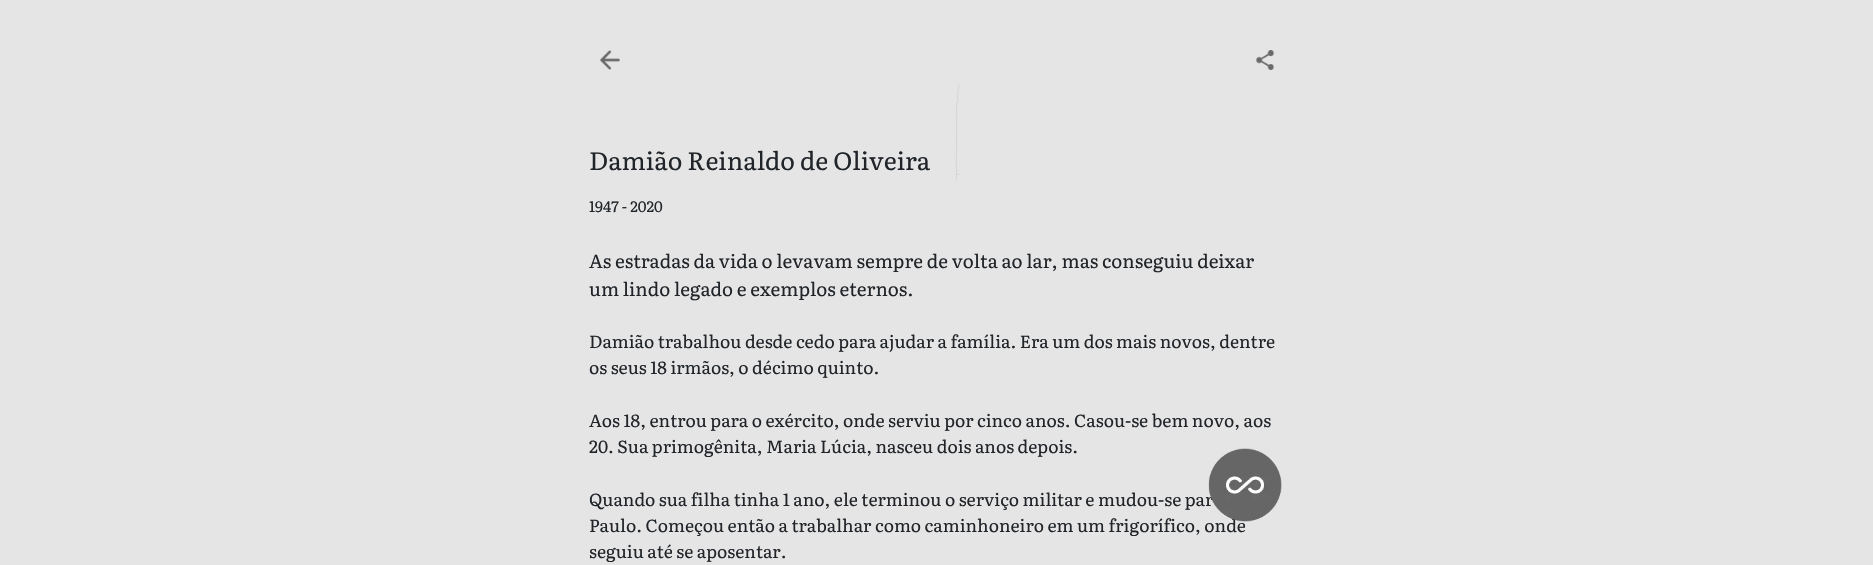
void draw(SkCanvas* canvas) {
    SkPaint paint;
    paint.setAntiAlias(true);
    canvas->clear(0xFFE5E5E5);
    canvas->drawImageRect(SkImages::DeferredFromEncodedData(SkData::MakeFromFileName("img1.png")), SkRect::MakeXYWH(600, 50, 20, 20), SkSamplingOptions());
    canvas->drawImageRect(SkImages::DeferredFromEncodedData(SkData::MakeFromFileName("img2.png")), SkRect::MakeXYWH(1256, 50, 19, 20), SkSamplingOptions());
    SkFont font1(fontMgr->matchFamilyStyle("Literata", SkFontStyle::Normal()), 25);
    font1.setSubpixel(true);
    paint.setColor(0xFF212529);
    canvas->drawString("Damião Reinaldo de Oliveira", 589, 170, font1, paint);
    canvas->drawImageRect(SkImages::DeferredFromEncodedData(SkData::MakeFromFileName("img3.png")), SkRect::MakeXYWH(954, 84, 6, 97), SkSamplingOptions());
    SkFont font2(fontMgr->matchFamilyStyle("Literata", SkFontStyle::Normal()), 15);
    font2.setSubpixel(true);
    canvas->drawString("1947 - 2020", 589, 212, font2, paint);
    SkFont font3(fontMgr->matchFamilyStyle("Literata", SkFontStyle::Normal()), 18.75f);
    font3.setSubpixel(true);
    canvas->drawString("As estradas da vida o levavam sempre de volta ao lar, mas conseguiu deixar", 589, 268, font3, paint);
    canvas->drawString("um lindo legado e exemplos eternos.", 589, 296, font3, paint);
    SkFont font4(fontMgr->matchFamilyStyle("Literata", SkFontStyle::Normal()), 17.5f);
    font4.setSubpixel(true);
    canvas->drawString("Damião trabalhou desde cedo para ajudar a família. Era um dos mais novos, dentre", 589, 348, font4, paint);
    canvas->drawString("os seus 18 irmãos, o décimo quinto.", 589, 374, font4, paint);
    canvas->drawString("Aos 18, entrou para o exército, onde serviu por cinco anos. Casou-se bem novo, aos", 589, 427, font4, paint);
    canvas->drawString("20. Sua primogênita, Maria Lúcia, nasceu dois anos depois.", 589, 453, font4, paint);
    canvas->drawString("Quando sua filha tinha 1 ano, ele terminou o serviço militar e mudou-se par", 589, 506, font4, paint);
    canvas->drawString("Paulo. Começou então a trabalhar como caminhoneiro em um frigorífico, onde", 589, 532, font4, paint);
    canvas->drawString("seguiu até se aposentar.", 589, 558, font4, paint);
    canvas->drawImageRect(SkImages::DeferredFromEncodedData(SkData::MakeFromFileName("img4.png")), SkRect::MakeXYWH(1208, 448, 74, 74), SkSamplingOptions());
}
